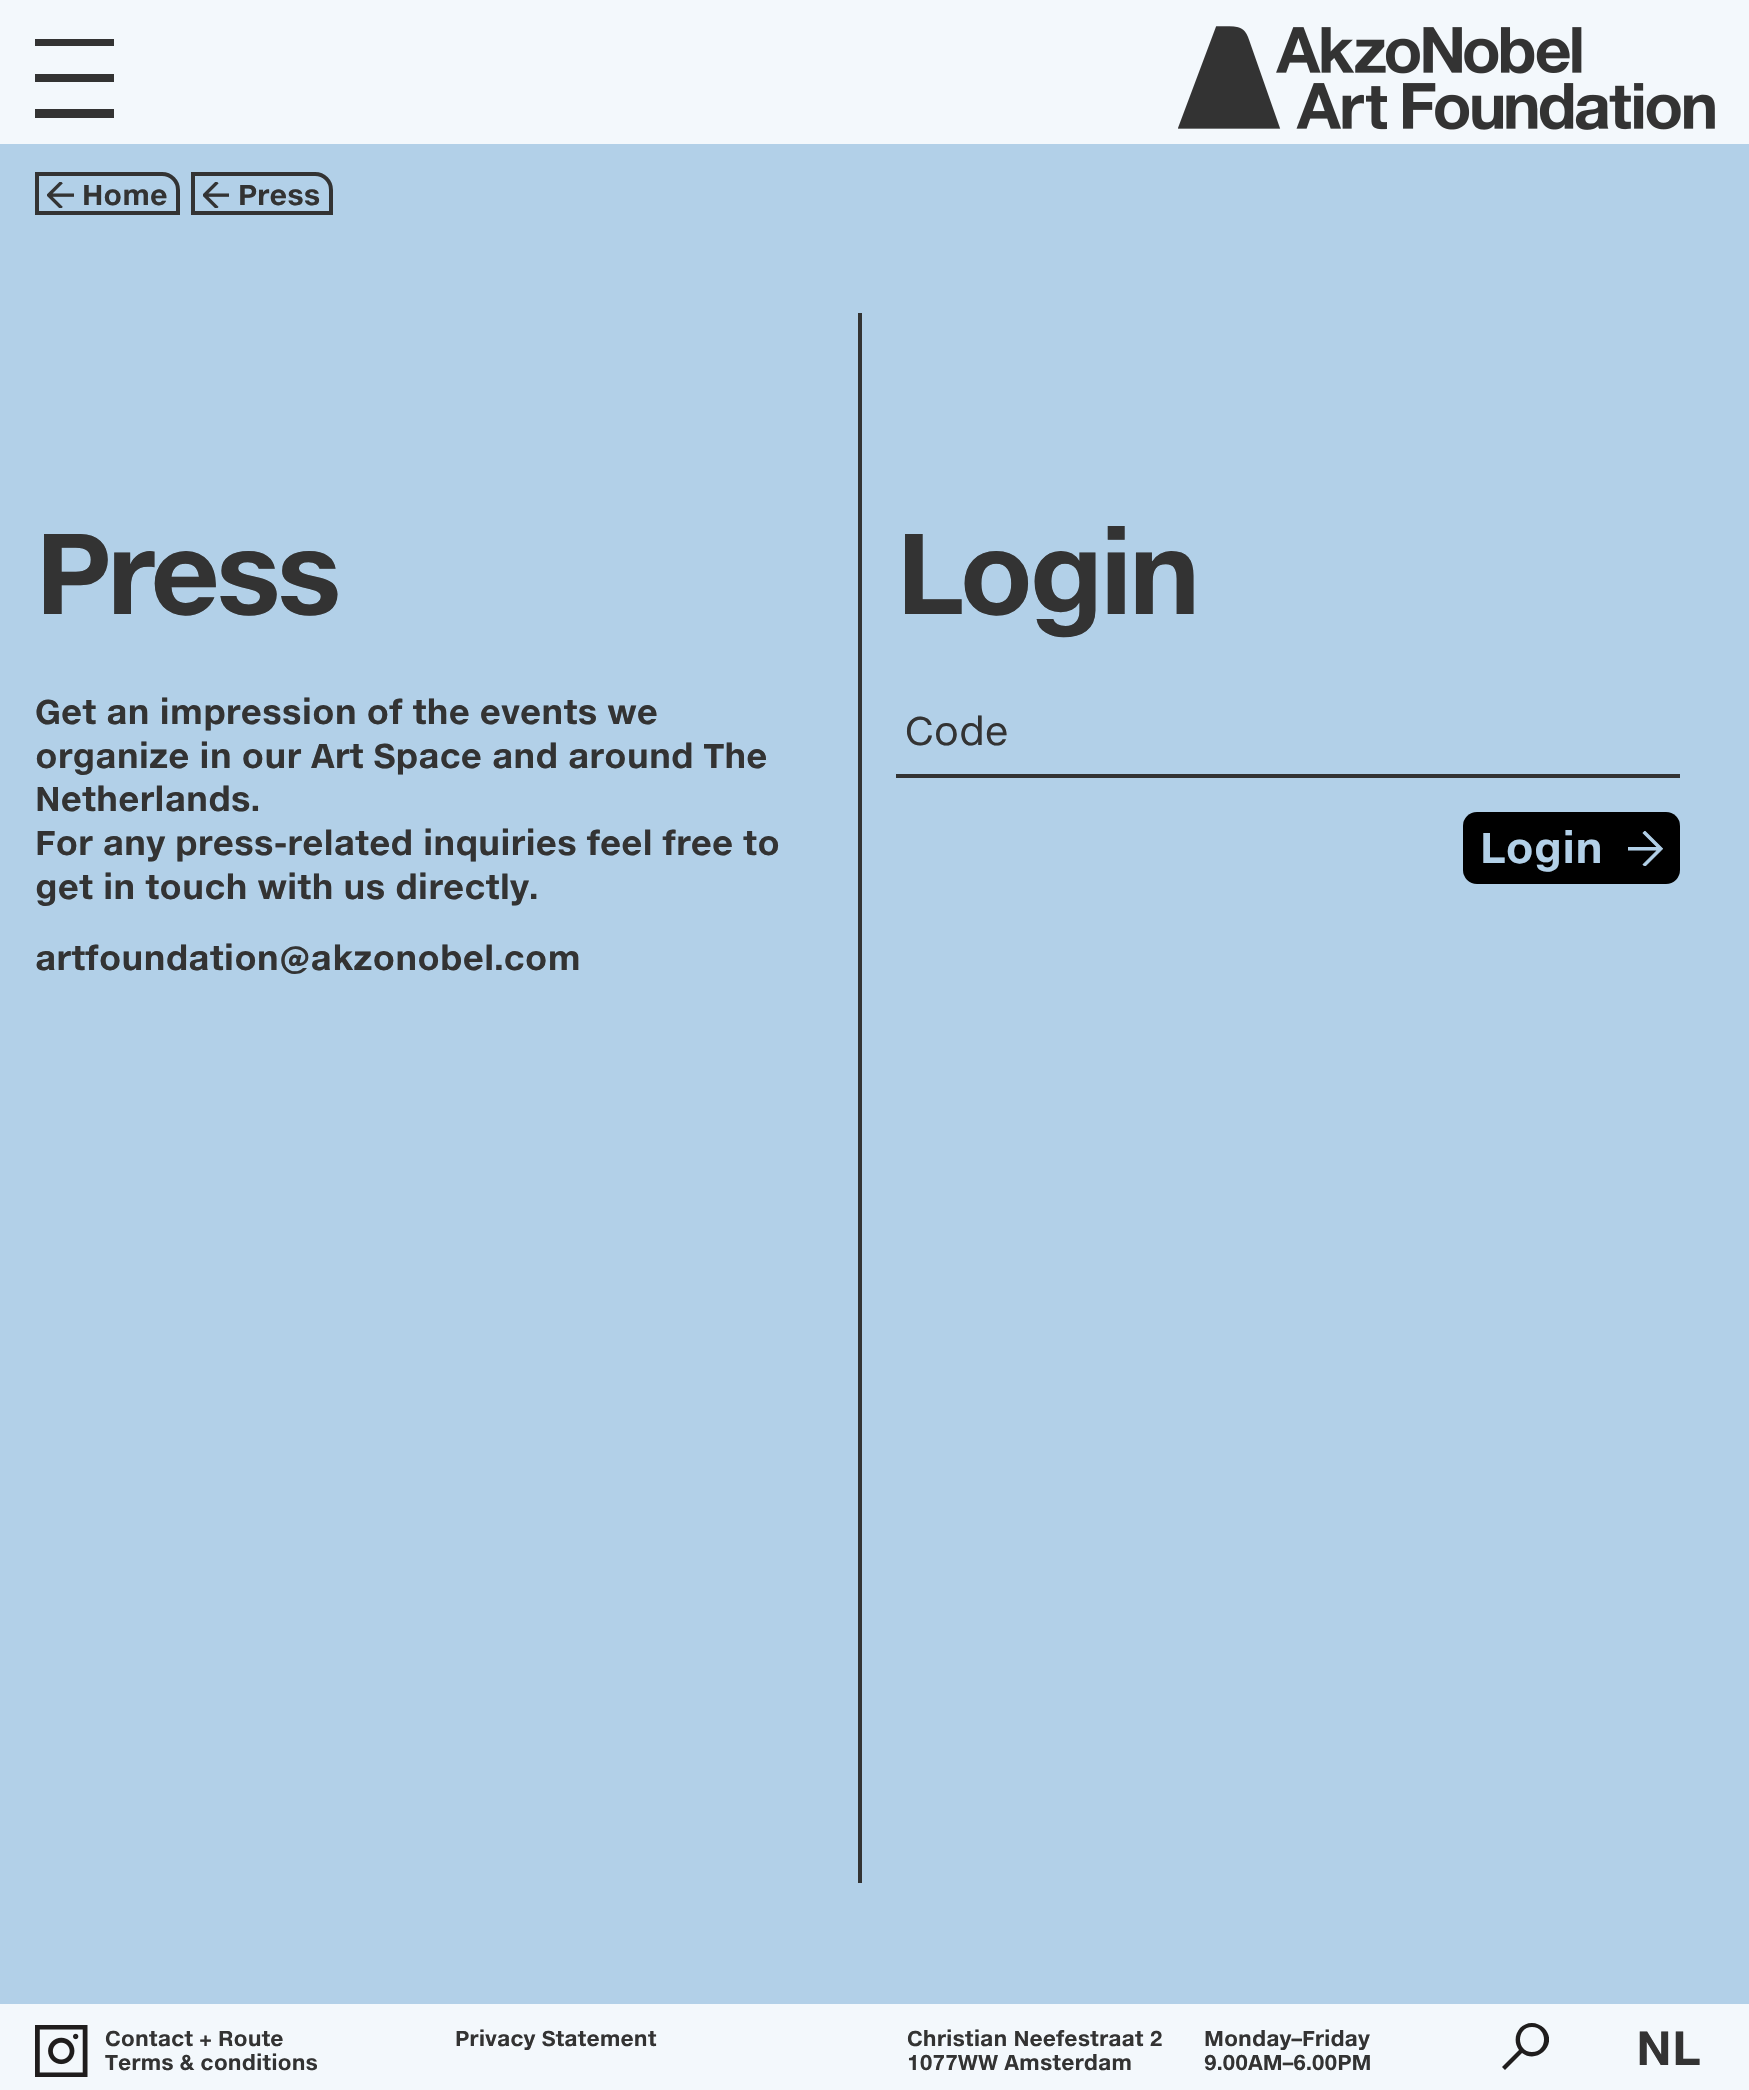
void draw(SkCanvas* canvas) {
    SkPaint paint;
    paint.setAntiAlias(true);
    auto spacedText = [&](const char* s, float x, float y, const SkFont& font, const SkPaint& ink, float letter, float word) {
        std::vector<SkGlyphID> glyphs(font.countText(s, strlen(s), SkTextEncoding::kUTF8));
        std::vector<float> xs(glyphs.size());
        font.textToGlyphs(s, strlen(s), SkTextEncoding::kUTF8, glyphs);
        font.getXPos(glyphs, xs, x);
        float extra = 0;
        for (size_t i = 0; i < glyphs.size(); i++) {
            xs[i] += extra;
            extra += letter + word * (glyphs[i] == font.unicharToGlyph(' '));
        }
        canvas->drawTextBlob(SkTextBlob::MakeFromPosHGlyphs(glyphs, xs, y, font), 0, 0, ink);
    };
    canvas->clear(0xFFB2D0E8);
    paint.setColor(0xFFF3F8FC);
    canvas->drawRect(SkRect::MakeXYWH(0, 0, 1749, 144), paint);
    paint.setColor(0xFF333333);
    canvas->drawRect(SkRect::MakeXYWH(35, 39, 79, 7), paint);
    canvas->drawRect(SkRect::MakeXYWH(35, 74, 79, 8), paint);
    canvas->drawRect(SkRect::MakeXYWH(35, 109, 79, 9), paint);
    canvas->drawImageRect(SkImages::DeferredFromEncodedData(SkData::MakeFromFileName("img1.png")), SkRect::MakeXYWH(1178, 26, 537, 104), SkSamplingOptions());
    paint.setStyle(SkPaint::kStroke_Style);
    paint.setStrokeWidth(4);
    canvas->drawPath(SkPathBuilder().moveTo(37, 174).lineTo(162, 174).cubicTo(171, 174, 178, 181, 178, 190).lineTo(178, 213).lineTo(37, 213).close().detach(), paint);
    canvas->drawImageRect(SkImages::DeferredFromEncodedData(SkData::MakeFromFileName("img2.png")), SkRect::MakeXYWH(47, 182, 27, 26), SkSamplingOptions());
    SkFont font1(fontMgr->matchFamilyStyle("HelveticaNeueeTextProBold", SkFontStyle::Normal()), 28);
    font1.setSubpixel(true);
    paint.setStyle(SkPaint::kFill_Style);
    canvas->drawString("Home", 82, 205, font1, paint);
    paint.setStyle(SkPaint::kStroke_Style);
    canvas->drawPath(SkPathBuilder().moveTo(193, 174).lineTo(315, 174).cubicTo(324, 174, 331, 181, 331, 190).lineTo(331, 213).lineTo(193, 213).close().detach(), paint);
    canvas->drawImageRect(SkImages::DeferredFromEncodedData(SkData::MakeFromFileName("img3.png")), SkRect::MakeXYWH(203, 182, 26, 26), SkSamplingOptions());
    paint.setStyle(SkPaint::kFill_Style);
    canvas->drawString("Press", 238, 205, font1, paint);
    SkFont font2(fontMgr->matchFamilyStyle("HelveticaNeueeTextProBold", SkFontStyle::Normal()), 112);
    font2.setSubpixel(true);
    spacedText("Press", 35, 614, font2, paint, -5.5f, 0);
    SkFont font3(fontMgr->matchFamilyStyle("HelveticaNeueeTextProBold", SkFontStyle::Normal()), 33.6f);
    font3.setSubpixel(true);
    canvas->drawString("Get an impression of the events we", 35, 724, font3, paint);
    canvas->drawString("organize in our Art Space and around The", 35, 768, font3, paint);
    canvas->drawString("Netherlands.", 35, 811, font3, paint);
    canvas->drawString("For any press-related inquiries feel free to", 35, 855, font3, paint);
    canvas->drawString("get in touch with us directly.", 35, 899, font3, paint);
    canvas->drawString("artfoundation@akzonobel.com", 35, 970, font3, paint);
    canvas->drawRect(SkRect::MakeXYWH(858, 313, 4, 1570), paint);
    spacedText("Login", 896, 614, font2, paint, -5.5f, 0);
    canvas->drawRect(SkRect::MakeXYWH(896, 774, 784, 4), paint);
    SkFont font4(fontMgr->matchFamilyStyle("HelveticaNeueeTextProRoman", SkFontStyle::Normal()), 39);
    font4.setSubpixel(true);
    canvas->drawString("Code", 905, 745, font4, paint);
    paint.setColor(0xFF000000);
    canvas->drawRoundRect(SkRect::MakeXYWH(1463, 812, 217, 72), 14, 14, paint);
    SkFont font5(fontMgr->matchFamilyStyle("HelveticaNeueeTextProBold", SkFontStyle::Normal()), 42);
    font5.setSubpixel(true);
    paint.setColor(0xFFB2D0E8);
    canvas->drawString("Login", 1480, 863, font5, paint);
    canvas->drawImageRect(SkImages::DeferredFromEncodedData(SkData::MakeFromFileName("img4.png")), SkRect::MakeXYWH(1628, 831, 35, 35), SkSamplingOptions());
    paint.setColor(0xFFF3F8FC);
    canvas->drawRect(SkRect::MakeXYWH(0, 2004, 1749, 86), paint);
    canvas->drawImageRect(SkImages::DeferredFromEncodedData(SkData::MakeFromFileName("img5.png")), SkRect::MakeXYWH(35, 2025, 53, 52), SkSamplingOptions());
    SkFont font6(fontMgr->matchFamilyStyle("HelveticaNeueeTextProBold", SkFontStyle::Normal()), 21);
    font6.setSubpixel(true);
    paint.setColor(0xFF333333);
    canvas->drawString("Contact + Route", 105, 2046, font6, paint);
    canvas->drawString("Terms & conditions", 105, 2070, font6, paint);
    canvas->drawString("Privacy Statement", 455, 2046, font6, paint);
    canvas->drawString("Christian Neefestraat 2", 907, 2046, font6, paint);
    canvas->drawString("1077WW Amsterdam", 907, 2070, font6, paint);
    canvas->drawString("Monday–Friday", 1204, 2046, font6, paint);
    canvas->drawString("9.00AM–6.00PM", 1204, 2070, font6, paint);
    canvas->save();
    canvas->clipRect(SkRect::MakeXYWH(1502, 2023, 47, 47));
    paint.setColor(0xFF1F1D1D);
    canvas->drawPath(SkPathBuilder().moveTo(1532, 2023).cubicTo(1518, 2023, 1511, 2039, 1519, 2050).lineTo(1502, 2067).lineTo(1505, 2070).lineTo(1522, 2053).cubicTo(1538, 2065, 1559, 2043, 1544, 2028).cubicTo(1541, 2025, 1536, 2023, 1532, 2023).close().moveTo(1532, 2052).cubicTo(1516, 2052, 1516, 2027, 1532, 2027).cubicTo(1548, 2027, 1548, 2052, 1532, 2052).close().detach(), paint);
    canvas->restore();
    SkFont font7(fontMgr->matchFamilyStyle("HelveticaNeueeTextProBold", SkFontStyle::Normal()), 47);
    font7.setSubpixel(true);
    paint.setColor(0xFF333333);
    canvas->drawString("NL", 1636, 2065, font7, paint);
}
